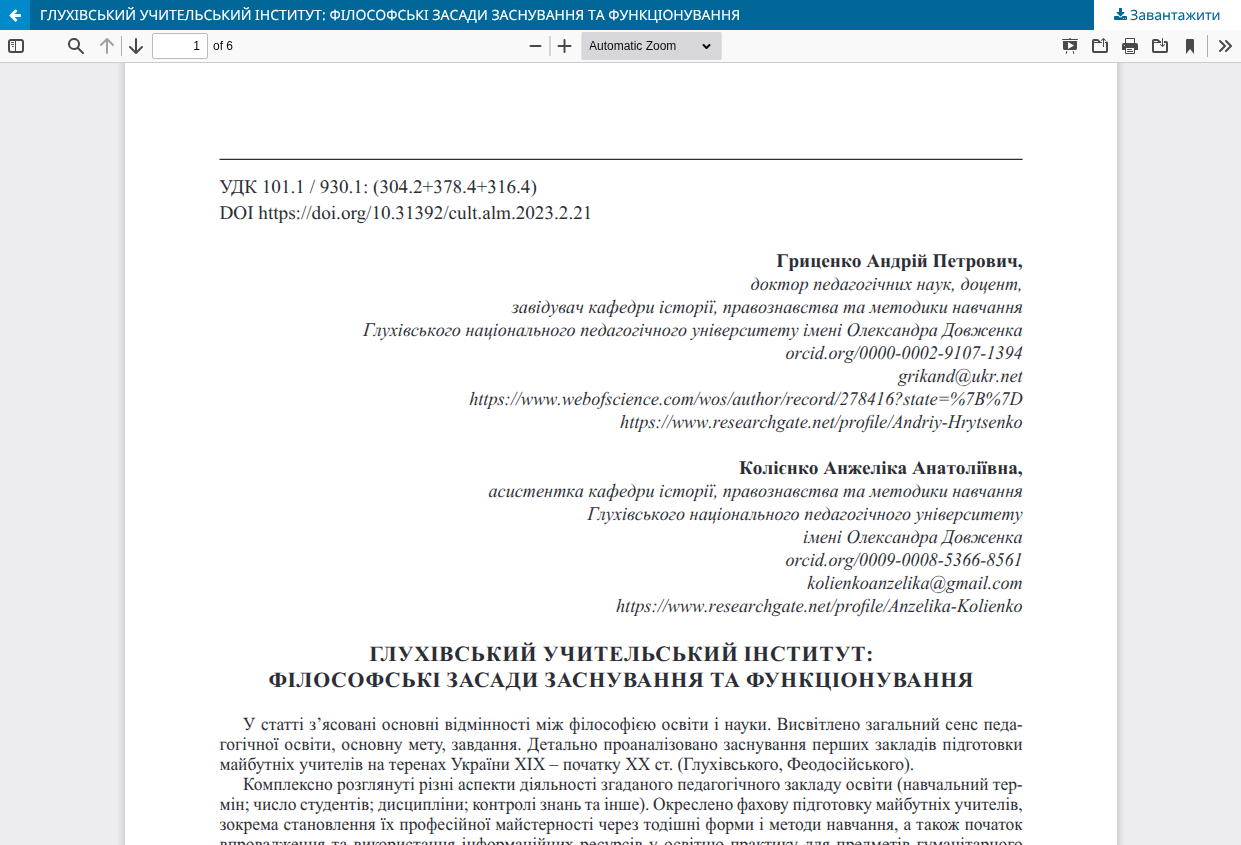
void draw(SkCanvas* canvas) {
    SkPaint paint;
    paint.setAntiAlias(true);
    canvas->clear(0xFFFFFFFF);
    paint.setColor(0xFF006798);
    canvas->drawRect(SkRect::MakeXYWH(30, 0, 1064, 30), paint);
    paint.setColor(0xFF008ACB);
    canvas->drawRect(SkRect::MakeXYWH(0, 0, 30, 30), paint);
    canvas->drawImageRect(SkImages::DeferredFromEncodedData(SkData::MakeFromFileName("img1.png")), SkRect::MakeXYWH(9, 9, 12, 13), SkSamplingOptions());
    SkFont font1(fontMgr->matchFamilyStyle("Noto Sans", SkFontStyle::Normal()), 14);
    font1.setSubpixel(true);
    paint.setColor(0xFFFFFFFF);
    canvas->drawString("ГЛУХІВСЬКИЙ УЧИТЕЛЬСЬКИЙ ІНСТИТУТ: ФІЛОСОФСЬКІ ЗАСАДИ ЗАСНУВАННЯ ТА ФУНКЦІОНУВАННЯ", 40, 20, font1, paint);
    canvas->drawImageRect(SkImages::DeferredFromEncodedData(SkData::MakeFromFileName("img2.png")), SkRect::MakeXYWH(1114, 8, 13, 12), SkSamplingOptions());
    paint.setColor(0xFF006798);
    canvas->drawString("Завантажити", 1130, 20, font1, paint);
    canvas->drawImageRect(SkImages::DeferredFromEncodedData(SkData::MakeFromFileName("img3.png")), SkRect::MakeXYWH(0, 30, 1241, 815), SkSamplingOptions());
}
